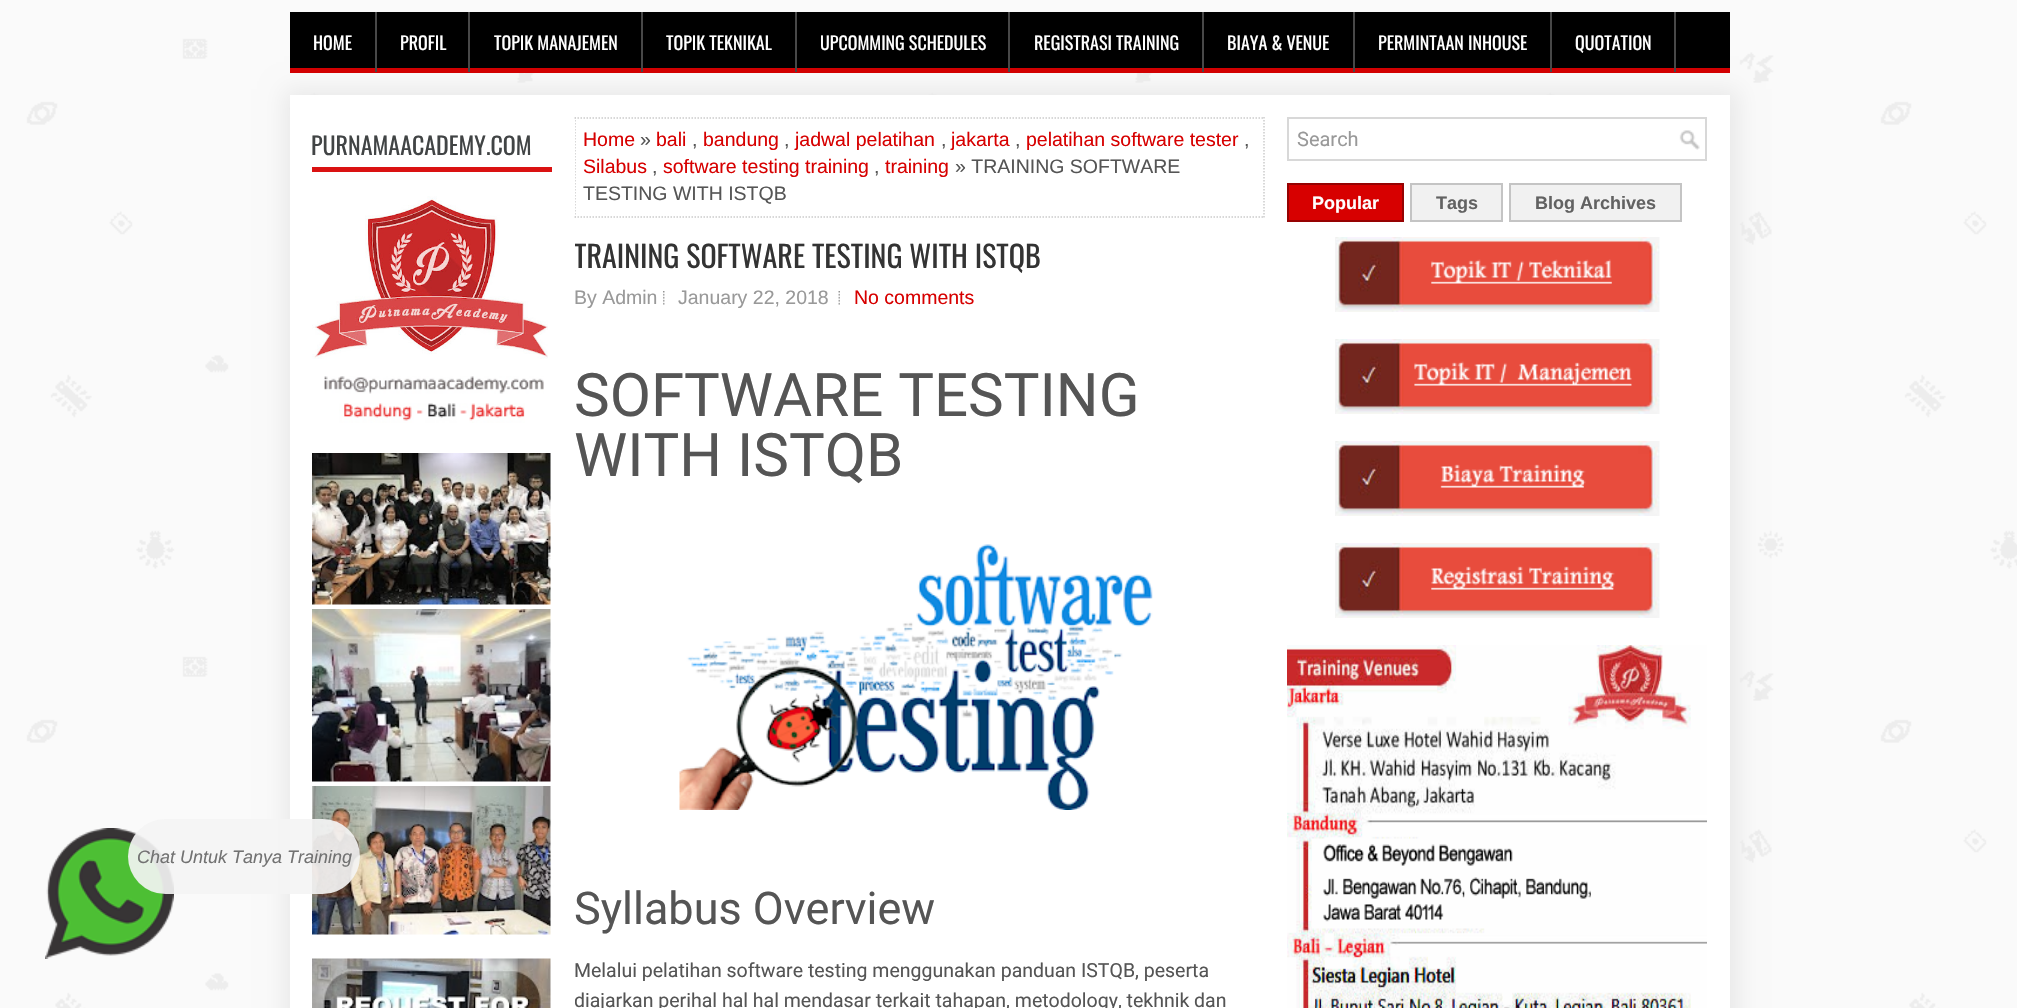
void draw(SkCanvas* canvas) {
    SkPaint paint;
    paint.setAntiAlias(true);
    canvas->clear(0xFFFFFFFF);
    canvas->drawImageRect(SkImages::DeferredFromEncodedData(SkData::MakeFromFileName("img1.png")), SkRect::MakeXYWH(0, 0, 2017, 1008), SkSamplingOptions());
    canvas->drawImageRect(SkImages::DeferredFromEncodedData(SkData::MakeFromFileName("img2.png")), SkRect::MakeXYWH(45, 828, 129, 131), SkSamplingOptions());
    paint.setColor(0xFFE9E9E9);
    paint.setMaskFilter(SkMaskFilter::MakeBlur(kNormal_SkBlurStyle, 11));
    canvas->drawRect(SkRect::MakeXYWH(284, 89, 1455, 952), paint);
    paint.setMaskFilter(nullptr);
    paint.setColor(0xFFFFFFFF);
    canvas->drawRect(SkRect::MakeXYWH(290, 95, 1440, 913), paint);
    canvas->drawImageRect(SkImages::DeferredFromEncodedData(SkData::MakeFromFileName("img8.png")), SkRect::MakeXYWH(312, 786, 239, 149), SkSamplingOptions());
    paint.setColor(0xE8F4F4F4);
    canvas->drawRoundRect(SkRect::MakeXYWH(128, 819, 232, 75), 37.5f, 37.5f, paint);
    SkFont font1(fontMgr->matchFamilyStyle("Liberation Sans", SkFontStyle::Italic()), 18);
    font1.setSubpixel(true);
    paint.setColor(0xFF727272);
    canvas->drawString("Chat Untuk Tanya Training", 137, 863, font1, paint);
    paint.setColor(0xFF000000);
    canvas->drawRect(SkRect::MakeXYWH(290, 12, 1440, 56), paint);
    paint.setColor(0xFFD20001);
    canvas->drawRect(SkRect::MakeXYWH(290, 68, 1440, 5), paint);
    paint.setColor(0xFF484848);
    canvas->drawRect(SkRect::MakeXYWH(375, 12, 2, 60), paint);
    SkFont font2(fontMgr->matchFamilyStyle("Oswald", SkFontStyle::Normal()), 18);
    font2.setSubpixel(true);
    paint.setColor(0xFFFFFFFF);
    canvas->drawString("HOME", 313, 50, font2, paint);
    paint.setColor(0xFF484848);
    canvas->drawRect(SkRect::MakeXYWH(468, 12, 2, 60), paint);
    paint.setColor(0xFFFFFFFF);
    canvas->drawString("PROFIL", 400, 50, font2, paint);
    paint.setColor(0xFF484848);
    canvas->drawRect(SkRect::MakeXYWH(641, 12, 2, 60), paint);
    paint.setColor(0xFFFFFFFF);
    canvas->drawString("TOPIK MANAJEMEN", 494, 50, font2, paint);
    paint.setColor(0xFF484848);
    canvas->drawRect(SkRect::MakeXYWH(795, 12, 2, 60), paint);
    paint.setColor(0xFFFFFFFF);
    canvas->drawString("TOPIK TEKNIKAL", 666, 50, font2, paint);
    paint.setColor(0xFF484848);
    canvas->drawRect(SkRect::MakeXYWH(1008, 12, 2, 60), paint);
    paint.setColor(0xFFFFFFFF);
    canvas->drawString("UPCOMMING SCHEDULES", 820, 50, font2, paint);
    paint.setColor(0xFF484848);
    canvas->drawRect(SkRect::MakeXYWH(1202, 12, 2, 60), paint);
    paint.setColor(0xFFFFFFFF);
    canvas->drawString("REGISTRASI TRAINING", 1034, 50, font2, paint);
    paint.setColor(0xFF484848);
    canvas->drawRect(SkRect::MakeXYWH(1353, 12, 2, 60), paint);
    paint.setColor(0xFFFFFFFF);
    canvas->drawString("BIAYA & VENUE", 1227, 50, font2, paint);
    paint.setColor(0xFF484848);
    canvas->drawRect(SkRect::MakeXYWH(1550, 12, 2, 60), paint);
    paint.setColor(0xFFFFFFFF);
    canvas->drawString("PERMINTAAN INHOUSE", 1378, 50, font2, paint);
    paint.setColor(0xFF484848);
    canvas->drawRect(SkRect::MakeXYWH(1674, 12, 2, 60), paint);
    paint.setColor(0xFFFFFFFF);
    canvas->drawString("QUOTATION", 1575, 50, font2, paint);
    paint.setColor(0xFFDA1212);
    canvas->drawRect(SkRect::MakeXYWH(312, 167, 240, 5), paint);
    SkFont font3(fontMgr->matchFamilyStyle("Oswald", SkFontStyle::Normal()), 24);
    font3.setSubpixel(true);
    paint.setColor(0xFF414445);
    canvas->drawString("PURNAMAACADEMY.COM", 311, 155, font3, paint);
    canvas->drawImageRect(SkImages::DeferredFromEncodedData(SkData::MakeFromFileName("img3.png")), SkRect::MakeXYWH(312, 196, 236, 163), SkSamplingOptions());
    canvas->drawImageRect(SkImages::DeferredFromEncodedData(SkData::MakeFromFileName("img4.png")), SkRect::MakeXYWH(324, 376, 220, 18), SkSamplingOptions());
    canvas->drawImageRect(SkImages::DeferredFromEncodedData(SkData::MakeFromFileName("img5.png")), SkRect::MakeXYWH(339, 403, 186, 20), SkSamplingOptions());
    canvas->drawImageRect(SkImages::DeferredFromEncodedData(SkData::MakeFromFileName("img6.png")), SkRect::MakeXYWH(312, 453, 239, 152), SkSamplingOptions());
    canvas->drawImageRect(SkImages::DeferredFromEncodedData(SkData::MakeFromFileName("img7.png")), SkRect::MakeXYWH(312, 609, 239, 173), SkSamplingOptions());
    canvas->drawImageRect(SkImages::DeferredFromEncodedData(SkData::MakeFromFileName("img9.png")), SkRect::MakeXYWH(312, 958, 239, 50), SkSamplingOptions());
    paint.setStyle(SkPaint::kStroke_Style);
    paint.setStrokeWidth(1.5f);
    paint.setColor(0xFFCCCCCC);
    paint.setPathEffect(SkDashPathEffect::Make({{1.5f, 1.5f}}, 0));
    canvas->drawPath(SkPathBuilder().moveTo(574.5f, 118).lineTo(1264.5f, 118).detach(), paint);
    paint.setPathEffect(nullptr);
    paint.setPathEffect(SkDashPathEffect::Make({{1.5f, 1.5f}}, 0));
    canvas->drawPath(SkPathBuilder().moveTo(1264, 117).lineTo(1264, 217.5f).detach(), paint);
    paint.setPathEffect(nullptr);
    paint.setPathEffect(SkDashPathEffect::Make({{1.5f, 1.5f}}, 0));
    canvas->drawPath(SkPathBuilder().moveTo(574.5f, 217).lineTo(1264.5f, 217).detach(), paint);
    paint.setPathEffect(nullptr);
    canvas->save();
    canvas->clipRect(SkRect::MakeXYWH(575, 117, 690, 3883));
    paint.setPathEffect(SkDashPathEffect::Make({{1.5f, 1.5f}}, 0));
    canvas->drawPath(SkPathBuilder().moveTo(575, 117).lineTo(575, 217.5f).detach(), paint);
    paint.setPathEffect(nullptr);
    canvas->restore();
    SkFont font4(fontMgr->matchFamilyStyle("Liberation Sans", SkFontStyle::Normal()), 19.5f);
    font4.setSubpixel(true);
    paint.setStyle(SkPaint::kFill_Style);
    paint.setColor(0xFFD70000);
    canvas->drawString("Home", 583, 146, font4, paint);
    paint.setColor(0xFF555555);
    canvas->drawString("»", 640, 146, font4, paint);
    paint.setColor(0xFFD70000);
    canvas->drawString("bali", 656, 146, font4, paint);
    canvas->drawString("bandung", 703, 146, font4, paint);
    canvas->drawString("jadwal pelatihan", 795, 146, font4, paint);
    canvas->drawString("jakarta", 951, 146, font4, paint);
    canvas->drawString("pelatihan software tester", 1026, 146, font4, paint);
    paint.setColor(0xFF555555);
    canvas->drawString(",", 692, 146, font4, paint);
    canvas->drawString(",", 784, 146, font4, paint);
    canvas->drawString(",", 941, 146, font4, paint);
    canvas->drawString(",", 1015, 146, font4, paint);
    canvas->drawString(",", 1244, 146, font4, paint);
    paint.setColor(0xFFD70000);
    canvas->drawString("Silabus", 583, 173, font4, paint);
    paint.setColor(0xFF555555);
    canvas->drawString(",", 652, 173, font4, paint);
    paint.setColor(0xFFD70000);
    canvas->drawString("software testing training", 663, 173, font4, paint);
    paint.setColor(0xFF555555);
    canvas->drawString(",", 874, 173, font4, paint);
    paint.setColor(0xFFD70000);
    canvas->drawString("training", 885, 173, font4, paint);
    paint.setColor(0xFF555555);
    canvas->drawString("» TRAINING SOFTWARE", 955, 173, font4, paint);
    canvas->drawString("TESTING WITH ISTQB", 583, 200, font4, paint);
    canvas->save();
    canvas->clipRect(SkRect::MakeXYWH(575, 117, 690, 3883));
    SkFont font5(fontMgr->matchFamilyStyle("Oswald", SkFontStyle::Normal()), 30);
    font5.setSubpixel(true);
    paint.setColor(0xFF333333);
    canvas->drawString("TRAINING SOFTWARE TESTING WITH ISTQB", 574, 268, font5, paint);
    canvas->restore();
    paint.setColor(0xFF999999);
    canvas->drawString("By Admin", 574, 304, font4, paint);
    canvas->drawImageRect(SkImages::DeferredFromEncodedData(SkData::MakeFromFileName("img10.png")), SkRect::MakeXYWH(663, 291, 2, 14), SkSamplingOptions());
    canvas->drawString("January 22, 2018", 678, 304, font4, paint);
    canvas->drawImageRect(SkImages::DeferredFromEncodedData(SkData::MakeFromFileName("img11.png")), SkRect::MakeXYWH(838, 291, 2, 14), SkSamplingOptions());
    paint.setColor(0xFFD70000);
    canvas->drawString("No comments", 854, 304, font4, paint);
    SkFont font6(fontMgr->matchFamilyStyle("Roboto", SkFontStyle::Normal()), 60);
    font6.setSubpixel(true);
    paint.setColor(0xFF555555);
    canvas->drawString("SOFTWARE TESTING", 574, 416, font6, paint);
    canvas->drawString("WITH ISTQB", 574, 476, font6, paint);
    canvas->drawImageRect(SkImages::DeferredFromEncodedData(SkData::MakeFromFileName("img12.png")), SkRect::MakeXYWH(679, 544, 474, 266), SkSamplingOptions());
    SkFont font7(fontMgr->matchFamilyStyle("Roboto", SkFontStyle::Normal()), 45);
    font7.setSubpixel(true);
    canvas->drawString("Syllabus Overview", 574, 924, font7, paint);
    SkFont font8(fontMgr->matchFamilyStyle("Roboto", SkFontStyle::Normal()), 19.5f);
    font8.setSubpixel(true);
    canvas->drawString("Melalui pelatihan software testing menggunakan panduan ISTQB, peserta", 574, 977, font8, paint);
    canvas->save();
    canvas->clipRect(SkRect::MakeXYWH(575, 117, 690, 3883));
    canvas->drawString("diajarkan perihal hal hal mendasar terkait tahapan, metodology, tekhnik dan", 574, 1007, font8, paint);
    canvas->restore();
    canvas->drawImageRect(SkImages::DeferredFromEncodedData(SkData::MakeFromFileName("img13.png")), SkRect::MakeXYWH(1679, 130, 21, 20), SkSamplingOptions());
    paint.setStyle(SkPaint::kStroke_Style);
    paint.setStrokeWidth(2);
    paint.setColor(0xFFD8D8D8);
    canvas->drawRect(SkRect::MakeXYWH(1288, 118, 418, 42), paint);
    SkFont font9(fontMgr->matchFamilyStyle("Roboto", SkFontStyle::Normal()), 20);
    font9.setSubpixel(true);
    paint.setStyle(SkPaint::kFill_Style);
    paint.setColor(0xFF999999);
    canvas->drawString("Search", 1297, 146, font9, paint);
    paint.setColor(0xFFD70000);
    canvas->drawRect(SkRect::MakeXYWH(1288, 184, 115, 37), paint);
    paint.setStyle(SkPaint::kStroke_Style);
    paint.setColor(0xFF960202);
    canvas->drawRect(SkRect::MakeXYWH(1288, 184, 115, 37), paint);
    SkFont font10(fontMgr->matchFamilyStyle("Liberation Sans", SkFontStyle::Bold()), 18);
    font10.setSubpixel(true);
    paint.setStyle(SkPaint::kFill_Style);
    paint.setColor(0xFFFFFFFF);
    canvas->drawString("Popular", 1312, 209, font10, paint);
    paint.setColor(0xFFF1F1F1);
    canvas->drawRect(SkRect::MakeXYWH(1411, 184, 91, 37), paint);
    paint.setStyle(SkPaint::kStroke_Style);
    paint.setColor(0xFFC4C4C4);
    canvas->drawRect(SkRect::MakeXYWH(1411, 184, 91, 37), paint);
    paint.setStyle(SkPaint::kFill_Style);
    paint.setColor(0xFF626262);
    canvas->drawString("Tags", 1436, 209, font10, paint);
    paint.setColor(0xFFF1F1F1);
    canvas->drawRect(SkRect::MakeXYWH(1510, 184, 171, 37), paint);
    paint.setStyle(SkPaint::kStroke_Style);
    paint.setColor(0xFFC4C4C4);
    canvas->drawRect(SkRect::MakeXYWH(1510, 184, 171, 37), paint);
    paint.setStyle(SkPaint::kFill_Style);
    paint.setColor(0xFF626262);
    canvas->drawString("Blog Archives", 1535, 209, font10, paint);
    canvas->drawImageRect(SkImages::DeferredFromEncodedData(SkData::MakeFromFileName("img14.png")), SkRect::MakeXYWH(1335, 237, 325, 75), SkSamplingOptions());
    canvas->drawImageRect(SkImages::DeferredFromEncodedData(SkData::MakeFromFileName("img15.png")), SkRect::MakeXYWH(1335, 339, 325, 75), SkSamplingOptions());
    canvas->drawImageRect(SkImages::DeferredFromEncodedData(SkData::MakeFromFileName("img16.png")), SkRect::MakeXYWH(1335, 441, 325, 75), SkSamplingOptions());
    canvas->drawImageRect(SkImages::DeferredFromEncodedData(SkData::MakeFromFileName("img17.png")), SkRect::MakeXYWH(1335, 543, 325, 75), SkSamplingOptions());
    canvas->drawImageRect(SkImages::DeferredFromEncodedData(SkData::MakeFromFileName("img18.png")), SkRect::MakeXYWH(1287, 645, 420, 363), SkSamplingOptions());
}
